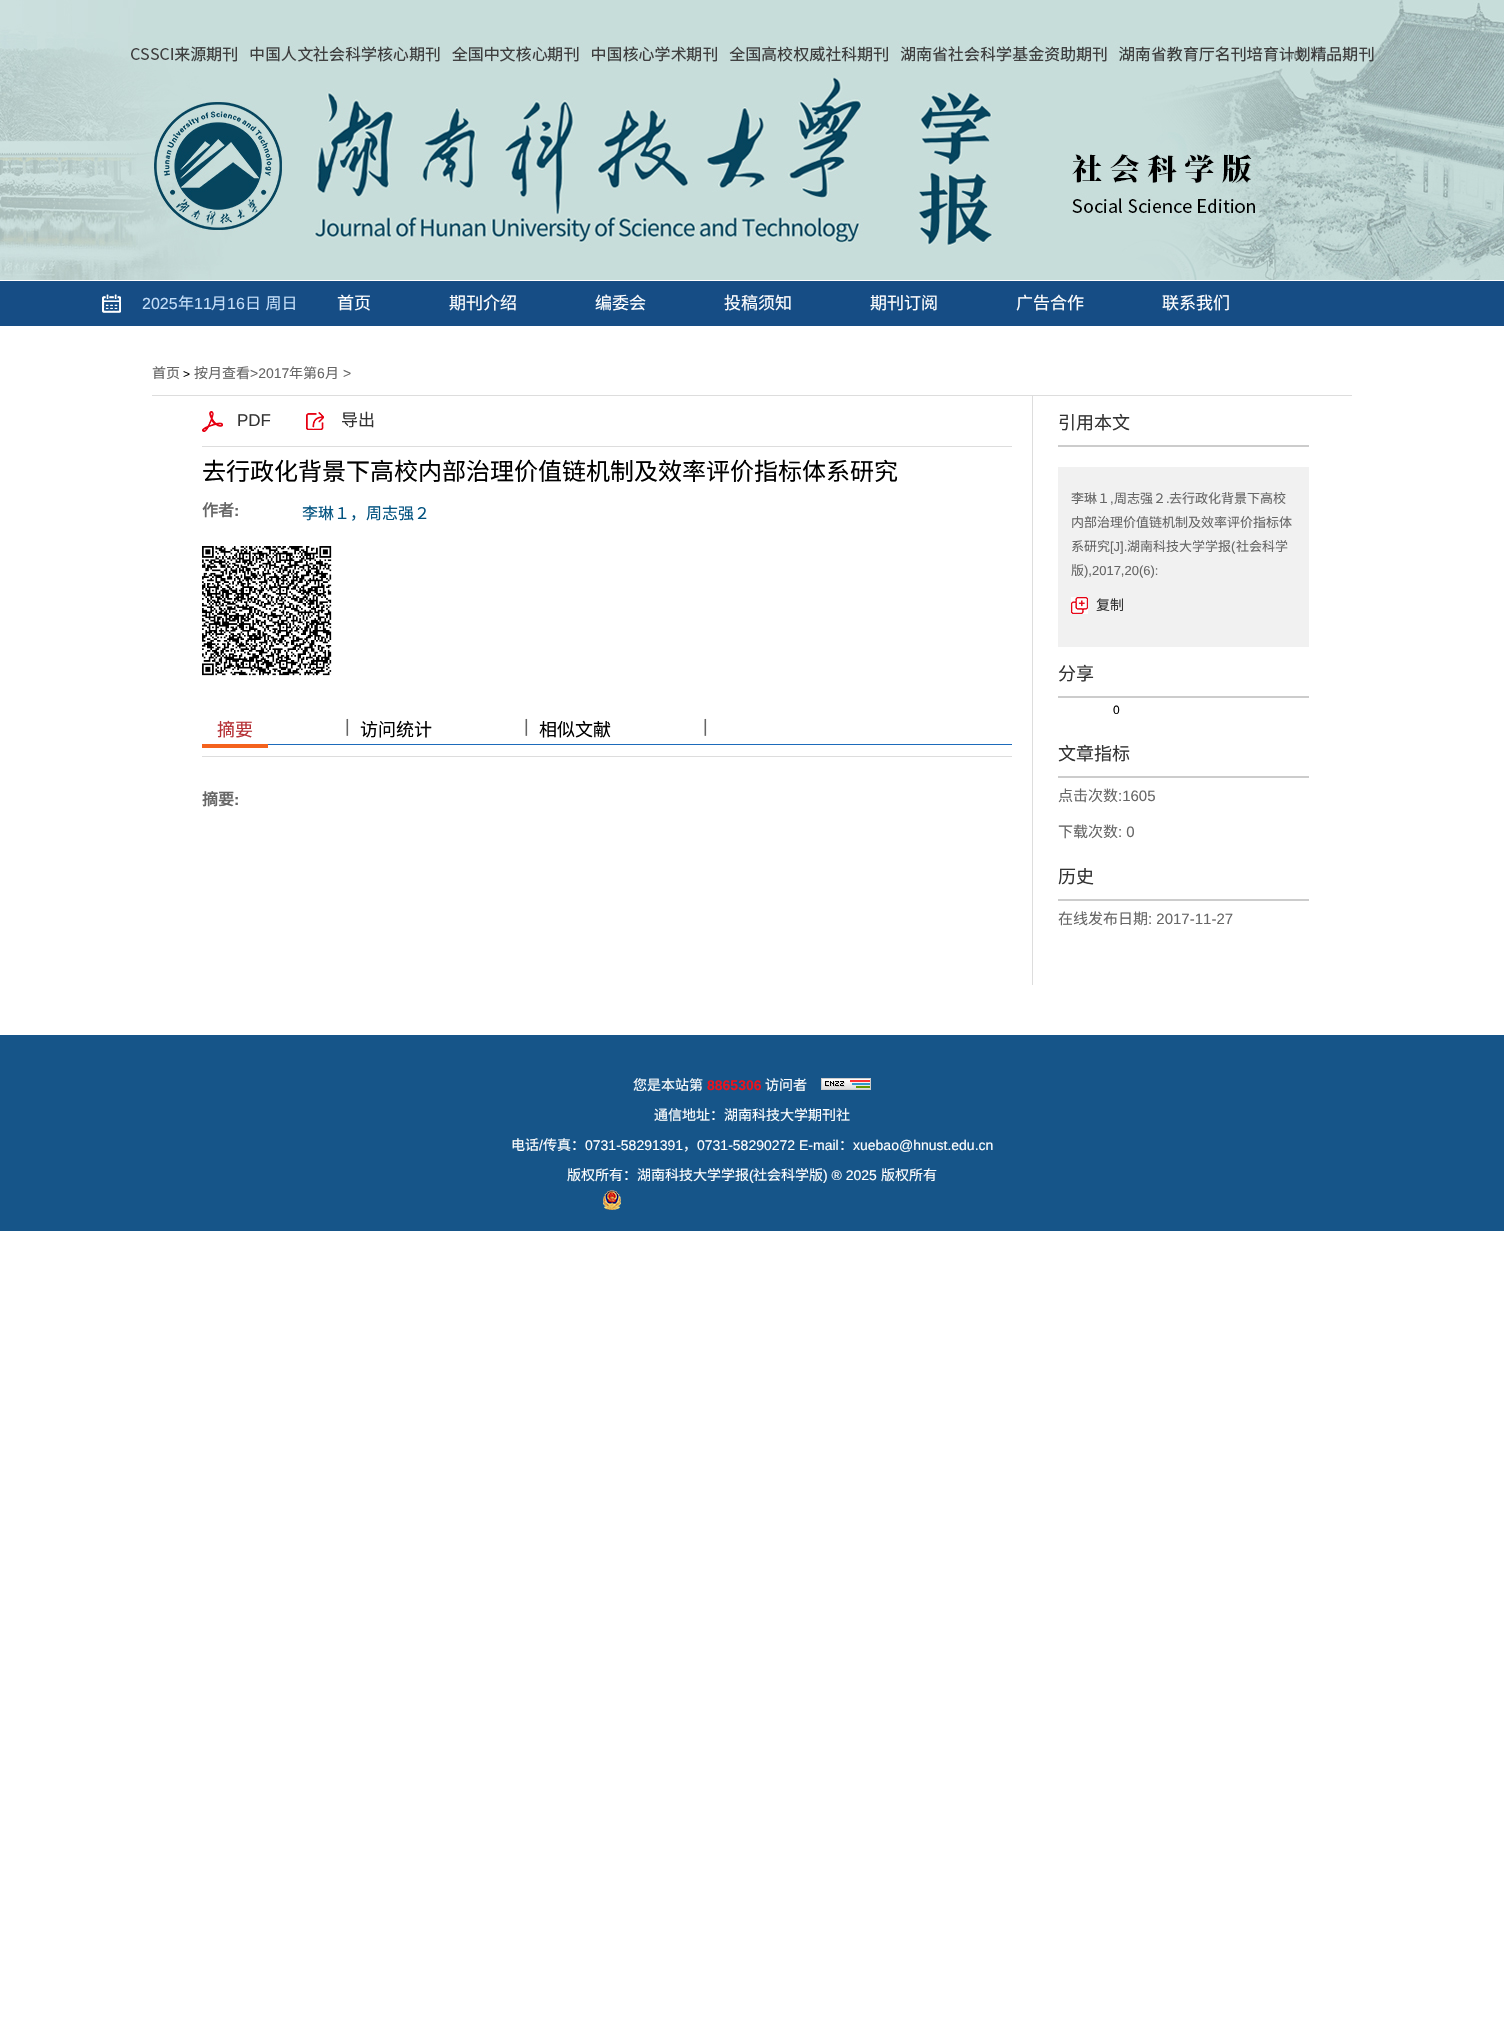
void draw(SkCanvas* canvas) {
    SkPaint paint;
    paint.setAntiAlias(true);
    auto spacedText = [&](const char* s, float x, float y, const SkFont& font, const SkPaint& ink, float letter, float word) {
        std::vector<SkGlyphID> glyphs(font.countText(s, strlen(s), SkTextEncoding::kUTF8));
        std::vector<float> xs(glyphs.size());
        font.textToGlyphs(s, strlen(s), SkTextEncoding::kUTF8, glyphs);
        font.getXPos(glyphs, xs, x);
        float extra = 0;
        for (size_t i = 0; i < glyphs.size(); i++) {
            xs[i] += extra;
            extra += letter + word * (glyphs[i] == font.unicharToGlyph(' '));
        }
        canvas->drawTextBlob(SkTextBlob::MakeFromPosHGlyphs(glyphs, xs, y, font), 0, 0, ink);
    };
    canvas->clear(0xFFFFFFFF);
    canvas->drawImageRect(SkImages::DeferredFromEncodedData(SkData::MakeFromFileName("img1.png")), SkRect::MakeXYWH(0, 0, 1504, 280), SkSamplingOptions());
    paint.setColor(0xFF164D85);
    canvas->drawRect(SkRect::MakeXYWH(0, 281, 1504, 45), paint);
    canvas->drawImageRect(SkImages::DeferredFromEncodedData(SkData::MakeFromFileName("img2.png")), SkRect::MakeXYWH(102, 294, 19, 19), SkSamplingOptions());
    SkFont font1(fontMgr->matchFamilyStyle("Liberation Sans", SkFontStyle::Normal()), 16);
    font1.setSubpixel(true);
    paint.setColor(0xFFC3DEF9);
    canvas->drawString("2025", 142, 309, font1, paint);
    SkFont font2(fontMgr->matchFamilyStyle("Noto Sans CJK SC", SkFontStyle::Normal()), 16);
    font2.setSubpixel(true);
    canvas->drawString("年", 178, 309, font2, paint);
    canvas->drawString("11", 194, 309, font1, paint);
    canvas->drawString("月", 211, 309, font2, paint);
    canvas->drawString("16", 227, 309, font1, paint);
    spacedText("日 周日", 245, 309, font2, paint, 0, 1);
    SkFont font3(fontMgr->matchFamilyStyle("Noto Sans CJK SC", SkFontStyle::Normal()), 17);
    font3.setSubpixel(true);
    paint.setColor(0xFFFFFFFF);
    canvas->drawString("首页", 337, 309, font3, paint);
    canvas->drawString("期刊介绍", 449, 309, font3, paint);
    canvas->drawString("编委会", 595, 309, font3, paint);
    canvas->drawString("投稿须知", 724, 309, font3, paint);
    canvas->drawString("期刊订阅", 870, 309, font3, paint);
    canvas->drawString("广告合作", 1016, 309, font3, paint);
    canvas->drawString("联系我们", 1162, 309, font3, paint);
    paint.setColor(0xFFDDDDDD);
    canvas->drawRect(SkRect::MakeXYWH(152, 395, 1200, 1), paint);
    SkFont font4(fontMgr->matchFamilyStyle("Noto Sans CJK SC", SkFontStyle::Normal()), 14);
    font4.setSubpixel(true);
    paint.setColor(0xFF666666);
    canvas->drawString("首页", 152, 378, font4, paint);
    SkFont font5(fontMgr->matchFamilyStyle("Liberation Sans", SkFontStyle::Normal()), 12);
    font5.setSubpixel(true);
    paint.setColor(0xFF000000);
    canvas->drawString(">", 183, 378, font5, paint);
    paint.setColor(0xFF666666);
    canvas->drawString("按月查看", 194, 378, font4, paint);
    SkFont font6(fontMgr->matchFamilyStyle("Liberation Sans", SkFontStyle::Normal()), 14);
    font6.setSubpixel(true);
    canvas->drawString(">2017", 250, 378, font6, paint);
    canvas->drawString("年第", 289, 378, font4, paint);
    canvas->drawString("6", 317, 378, font6, paint);
    canvas->drawString("月", 325, 378, font4, paint);
    canvas->drawString(">", 343, 378, font6, paint);
    paint.setColor(0xFFDDDDDD);
    canvas->drawRect(SkRect::MakeXYWH(202, 446, 810, 1), paint);
    canvas->drawImageRect(SkImages::DeferredFromEncodedData(SkData::MakeFromFileName("img3.png")), SkRect::MakeXYWH(202, 411, 21, 21), SkSamplingOptions());
    SkFont font7(fontMgr->matchFamilyStyle("Liberation Sans", SkFontStyle::Normal()), 17);
    font7.setSubpixel(true);
    paint.setColor(0xFF333333);
    canvas->drawString("PDF", 237, 426, font7, paint);
    canvas->drawImageRect(SkImages::DeferredFromEncodedData(SkData::MakeFromFileName("img4.png")), SkRect::MakeXYWH(306, 412, 18, 18), SkSamplingOptions());
    canvas->drawString("导出", 341, 426, font3, paint);
    SkFont font8(fontMgr->matchFamilyStyle("Noto Sans CJK SC", SkFontStyle::Normal()), 24);
    font8.setSubpixel(true);
    paint.setColor(0xFF000000);
    canvas->drawString("去行政化背景下高校内部治理价值链机制及效率评价指标体系研究", 202, 480, font8, paint);
    SkFont font9(fontMgr->matchFamilyStyle("Noto Sans CJK SC", SkFontStyle::Bold()), 16);
    font9.setSubpixel(true);
    paint.setColor(0xFF666666);
    canvas->drawString("作者", 202, 516, font9, paint);
    SkFont font10(fontMgr->matchFamilyStyle("Liberation Sans", SkFontStyle::Bold()), 16);
    font10.setSubpixel(true);
    canvas->drawString(":", 234, 516, font10, paint);
    paint.setColor(0xFF01527F);
    canvas->drawString("李琳１，周志强２", 302, 519, font2, paint);
    canvas->drawImageRect(SkImages::DeferredFromEncodedData(SkData::MakeFromFileName("img5.png")), SkRect::MakeXYWH(202, 546, 130, 130), SkSamplingOptions());
    paint.setColor(0xFF1D6BBB);
    canvas->drawRect(SkRect::MakeXYWH(268, 744, 744, 1), paint);
    paint.setColor(0xFFDDDDDD);
    canvas->drawRect(SkRect::MakeXYWH(202, 756, 810, 1), paint);
    paint.setColor(0xFFF4621D);
    canvas->drawRect(SkRect::MakeXYWH(202, 744, 66, 4), paint);
    SkFont font11(fontMgr->matchFamilyStyle("Noto Sans CJK SC", SkFontStyle::Normal()), 18);
    font11.setSubpixel(true);
    paint.setColor(0xFFB53035);
    canvas->drawString("摘要", 217, 736, font11, paint);
    SkFont font12(fontMgr->matchFamilyStyle("Liberation Sans", SkFontStyle::Normal()), 18);
    font12.setSubpixel(true);
    paint.setColor(0xFF666666);
    canvas->drawString("|", 345, 732, font12, paint);
    paint.setColor(0xFF000000);
    canvas->drawString("访问统计", 360, 736, font11, paint);
    paint.setColor(0xFF666666);
    canvas->drawString("|", 524, 732, font12, paint);
    paint.setColor(0xFF000000);
    canvas->drawString("相似文献", 539, 736, font11, paint);
    paint.setColor(0xFF666666);
    canvas->drawString("|", 703, 732, font12, paint);
    canvas->drawString("摘要", 202, 805, font9, paint);
    canvas->drawString(":", 234, 805, font10, paint);
    paint.setColor(0xFFDDDDDD);
    canvas->drawRect(SkRect::MakeXYWH(1032, 396, 1, 589), paint);
    paint.setColor(0xFFCCCCCC);
    canvas->drawRect(SkRect::MakeXYWH(1058, 445, 251, 2), paint);
    paint.setColor(0xFF333333);
    canvas->drawString("引用本文", 1058, 429, font11, paint);
    paint.setColor(0xFFF1F1F1);
    canvas->drawRect(SkRect::MakeXYWH(1058, 467, 251, 180), paint);
    SkFont font13(fontMgr->matchFamilyStyle("Noto Sans CJK SC", SkFontStyle::Normal()), 13);
    font13.setSubpixel(true);
    paint.setColor(0xFF666666);
    canvas->drawString("李琳１", 1071, 503, font13, paint);
    SkFont font14(fontMgr->matchFamilyStyle("Liberation Sans", SkFontStyle::Normal()), 13);
    font14.setSubpixel(true);
    canvas->drawString(",", 1110, 503, font14, paint);
    canvas->drawString("周志强２", 1114, 503, font13, paint);
    canvas->drawString(".", 1166, 503, font14, paint);
    canvas->drawString("去行政化背景下高校", 1169, 503, font13, paint);
    canvas->drawString("内部治理价值链机制及效率评价指标体", 1071, 527, font13, paint);
    canvas->drawString("系研究", 1071, 551, font13, paint);
    canvas->drawString("[J].", 1110, 551, font14, paint);
    canvas->drawString("湖南科技大学学报", 1127, 551, font13, paint);
    canvas->drawString("(", 1231, 551, font14, paint);
    canvas->drawString("社会科学", 1236, 551, font13, paint);
    canvas->drawString("版", 1071, 575, font13, paint);
    canvas->drawString("),2017,20(6):", 1084, 575, font14, paint);
    canvas->drawImageRect(SkImages::DeferredFromEncodedData(SkData::MakeFromFileName("img6.png")), SkRect::MakeXYWH(1071, 597, 17, 17), SkSamplingOptions());
    paint.setColor(0xFF333333);
    canvas->drawString("复制", 1096, 610, font4, paint);
    paint.setColor(0xFFCCCCCC);
    canvas->drawRect(SkRect::MakeXYWH(1058, 696, 251, 2), paint);
    paint.setColor(0xFF333333);
    canvas->drawString("分享", 1058, 680, font11, paint);
    paint.setColor(0xFF000000);
    canvas->drawString("0", 1113, 714, font5, paint);
    paint.setColor(0xFFCCCCCC);
    canvas->drawRect(SkRect::MakeXYWH(1058, 776, 251, 2), paint);
    paint.setColor(0xFF333333);
    canvas->drawString("文章指标", 1058, 760, font11, paint);
    SkFont font15(fontMgr->matchFamilyStyle("Noto Sans CJK SC", SkFontStyle::Normal()), 15);
    font15.setSubpixel(true);
    paint.setColor(0xFF666666);
    canvas->drawString("点击次数", 1058, 801, font15, paint);
    SkFont font16(fontMgr->matchFamilyStyle("Liberation Sans", SkFontStyle::Normal()), 15);
    font16.setSubpixel(true);
    canvas->drawString(":1605", 1118, 801, font16, paint);
    canvas->drawString("下载次数", 1058, 837, font15, paint);
    canvas->drawString(": 0", 1118, 837, font16, paint);
    paint.setColor(0xFFCCCCCC);
    canvas->drawRect(SkRect::MakeXYWH(1058, 899, 251, 2), paint);
    paint.setColor(0xFF333333);
    canvas->drawString("历史", 1058, 883, font11, paint);
    paint.setColor(0xFF666666);
    canvas->drawString("在线发布日期", 1058, 924, font15, paint);
    canvas->drawString(": 2017-11-27", 1148, 924, font16, paint);
    paint.setColor(0xFF165589);
    canvas->drawRect(SkRect::MakeXYWH(0, 1035, 1504, 196), paint);
    paint.setColor(0xFFFFFFFF);
    canvas->drawString("您是本站第", 633, 1090, font4, paint);
    SkFont font17(fontMgr->matchFamilyStyle("Liberation Sans", SkFontStyle::Bold()), 14);
    font17.setSubpixel(true);
    paint.setColor(0xFFE9131D);
    canvas->drawString("8865306", 707, 1090, font17, paint);
    paint.setColor(0xFFFFFFFF);
    canvas->drawString("访问者", 765, 1090, font4, paint);
    canvas->drawImageRect(SkImages::DeferredFromEncodedData(SkData::MakeFromFileName("img7.png")), SkRect::MakeXYWH(821, 1078, 50, 12), SkSamplingOptions());
    canvas->drawString("通信地址：湖南科技大学期刊社", 654, 1120, font4, paint);
    canvas->drawString("电话", 511, 1150, font4, paint);
    canvas->drawString("/", 539, 1150, font6, paint);
    canvas->drawString("传真：", 543, 1150, font4, paint);
    canvas->drawString("0731-58291391", 585, 1150, font6, paint);
    canvas->drawString("，", 683, 1150, font4, paint);
    canvas->drawString("0731-58290272 E-mail", 697, 1150, font6, paint);
    canvas->drawString("：", 839, 1150, font4, paint);
    canvas->drawString("xuebao@hnust.edu.cn", 853, 1150, font6, paint);
    canvas->drawString("版权所有：湖南科技大学学报", 567, 1180, font4, paint);
    canvas->drawString("(", 749, 1180, font6, paint);
    canvas->drawString("社会科学版", 753, 1180, font4, paint);
    canvas->drawString(") ® 2025", 823, 1180, font6, paint);
    canvas->drawString("版权所有", 881, 1180, font4, paint);
    canvas->drawImageRect(SkImages::DeferredFromEncodedData(SkData::MakeFromFileName("img8.png")), SkRect::MakeXYWH(603, 1190, 18, 20), SkSamplingOptions());
}
